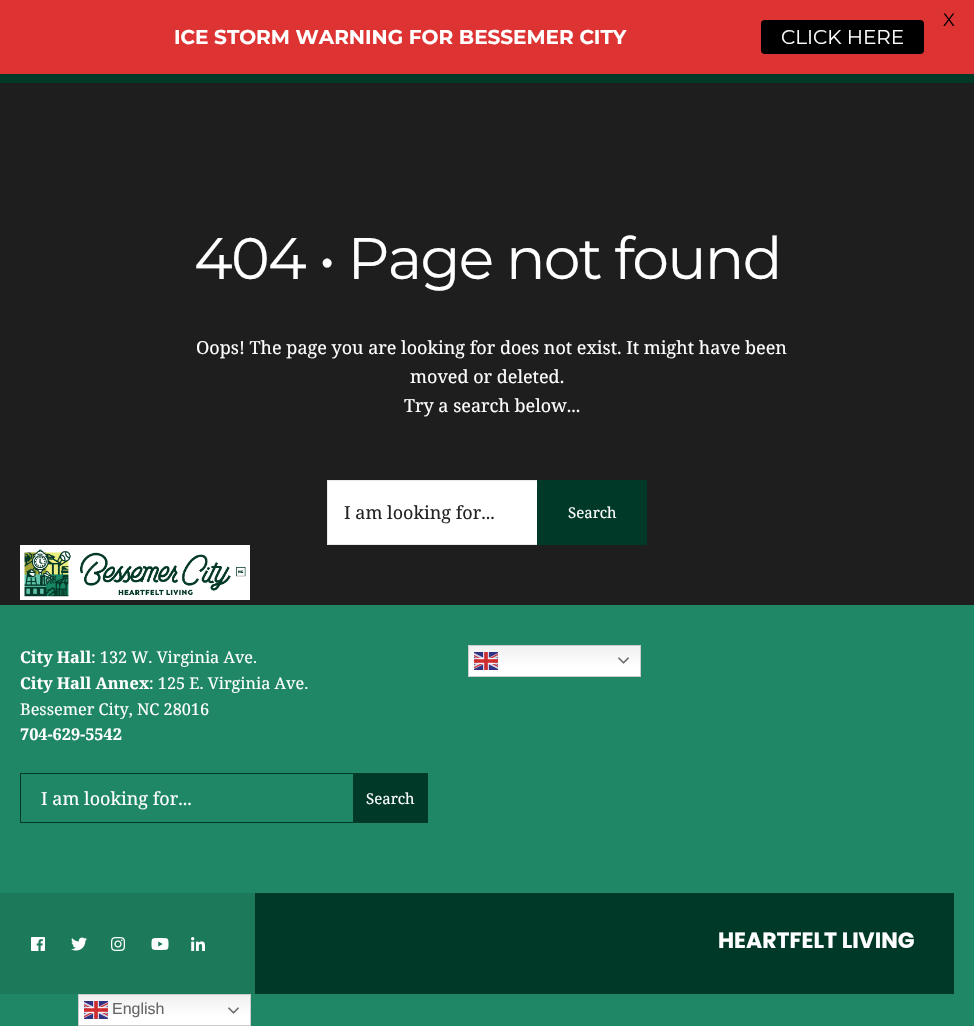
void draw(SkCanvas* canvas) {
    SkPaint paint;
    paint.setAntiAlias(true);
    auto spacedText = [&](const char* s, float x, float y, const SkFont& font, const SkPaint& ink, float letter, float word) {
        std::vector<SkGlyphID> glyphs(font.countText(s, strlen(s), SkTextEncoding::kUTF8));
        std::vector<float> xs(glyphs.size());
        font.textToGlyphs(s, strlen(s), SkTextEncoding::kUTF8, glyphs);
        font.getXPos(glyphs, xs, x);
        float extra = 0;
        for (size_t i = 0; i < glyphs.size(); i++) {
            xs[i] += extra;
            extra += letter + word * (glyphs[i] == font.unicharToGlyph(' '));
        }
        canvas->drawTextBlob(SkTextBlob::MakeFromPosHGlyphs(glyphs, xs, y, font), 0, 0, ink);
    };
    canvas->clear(0xFF1E1E1E);
    paint.setColor(0xFFDD3333);
    canvas->drawRect(SkRect::MakeXYWH(0, 0, 974, 74), paint);
    SkFont font1(fontMgr->matchFamilyStyle("Montserrat", SkFontStyle::Normal()), 18);
    font1.setSubpixel(true);
    paint.setColor(0xFF000000);
    canvas->drawString("X", 943, 26, font1, paint);
    SkFont font2(fontMgr->matchFamilyStyle("Montserrat", SkFontStyle::Bold()), 20);
    font2.setSubpixel(true);
    paint.setColor(0xFFFFFFFF);
    canvas->drawString("ICE STORM WARNING FOR BESSEMER CITY", 174, 44, font2, paint);
    paint.setColor(0xFF000000);
    canvas->drawRoundRect(SkRect::MakeXYWH(761, 20, 163, 34), 4, 4, paint);
    SkFont font3(fontMgr->matchFamilyStyle("Montserrat", SkFontStyle::Normal()), 20);
    font3.setSubpixel(true);
    paint.setColor(0xFFFFFFFF);
    canvas->drawString("CLICK HERE", 781, 44, font3, paint);
    paint.setColor(0xFF003928);
    canvas->drawRect(SkRect::MakeXYWH(0, 74, 974, 9), paint);
    SkFont font4(fontMgr->matchFamilyStyle("Montserrat", SkFontStyle::Normal()), 58.5f);
    font4.setSubpixel(true);
    paint.setColor(0xFFFFFFFF);
    spacedText("404 • Page not found", 194, 279, font4, paint, -1.75f, 0);
    SkFont font5(fontMgr->matchFamilyStyle("Noto Serif", SkFontStyle::Normal()), 18);
    font5.setSubpixel(true);
    canvas->drawString("Oops! The page you are looking for does not exist. It might have been", 196, 354, font5, paint);
    canvas->drawString("moved or deleted.", 410, 383, font5, paint);
    canvas->drawString("Try a search below...", 404, 412, font5, paint);
    canvas->drawRect(SkRect::MakeXYWH(328, 481, 209, 63), paint);
    paint.setStyle(SkPaint::kStroke_Style);
    paint.setStrokeWidth(1);
    paint.setColor(0xFFEAEAEA);
    canvas->drawRect(SkRect::MakeXYWH(327.5f, 480.5f, 319, 64), paint);
    paint.setStyle(SkPaint::kFill_Style);
    paint.setColor(0xFF232323);
    canvas->drawString("I am looking for...", 344, 519, font5, paint);
    paint.setColor(0xFF003928);
    canvas->drawRect(SkRect::MakeXYWH(537, 480, 110, 65), paint);
    SkFont font6(fontMgr->matchFamilyStyle("Noto Serif", SkFontStyle::Normal()), 15);
    font6.setSubpixel(true);
    paint.setColor(0xFFFFFFFF);
    canvas->drawString("Search", 568, 518, font6, paint);
    paint.setColor(0xFF1F8765);
    canvas->drawRect(SkRect::MakeXYWH(0, 605, 974, 421), paint);
    canvas->drawImageRect(SkImages::DeferredFromEncodedData(SkData::MakeFromFileName("img1.png")), SkRect::MakeXYWH(20, 545, 230, 55), SkSamplingOptions());
    SkFont font7(fontMgr->matchFamilyStyle("Noto Serif", SkFontStyle::Bold()), 16.25f);
    font7.setSubpixel(true);
    paint.setColor(0xFFFFFFFF);
    canvas->drawString("City Hall", 20, 663, font7, paint);
    SkFont font8(fontMgr->matchFamilyStyle("Noto Serif", SkFontStyle::Normal()), 16.25f);
    font8.setSubpixel(true);
    canvas->drawString(": 132 W. Virginia Ave.", 91, 663, font8, paint);
    canvas->drawString("City Hall Annex", 20, 689, font7, paint);
    canvas->drawString(": 125 E. Virginia Ave.", 149, 689, font8, paint);
    canvas->drawString("Bessemer City, NC 28016", 20, 715, font8, paint);
    canvas->drawString("704-629-5542", 20, 740, font7, paint);
    paint.setStyle(SkPaint::kStroke_Style);
    paint.setColor(0xFF003928);
    canvas->drawRect(SkRect::MakeXYWH(20.5f, 773.5f, 407, 49), paint);
    paint.setStyle(SkPaint::kFill_Style);
    paint.setColor(0xFFFFFFFF);
    canvas->drawString("I am looking for...", 41, 805, font5, paint);
    paint.setColor(0xFF003928);
    canvas->drawRect(SkRect::MakeXYWH(353, 774, 74, 48), paint);
    paint.setColor(0xFFFFFFFF);
    canvas->drawString("Search", 366, 804, font6, paint);
    {
        const SkColor colors[] = {0xFFEFEFEF, 0xFFFFFFFF};
        const float stops[] = {0, 0.7f};
        const SkPoint ends[] = {{555, 645}, {555, 677}};
        paint.setShader(SkGradientShader::MakeLinear(ends, colors, stops, 2, SkTileMode::kClamp));
        paint.setAlpha(255);
    }
    canvas->drawRect(SkRect::MakeXYWH(469, 646, 171, 30), paint);
    paint.setStyle(SkPaint::kStroke_Style);
    paint.setShader(nullptr);
    paint.setColor(0xFFCCCCCC);
    canvas->drawRect(SkRect::MakeXYWH(468.5f, 645.5f, 172, 31), paint);
    canvas->drawImageRect(SkImages::DeferredFromEncodedData(SkData::MakeFromFileName("img2.png")), SkRect::MakeXYWH(474, 652, 24, 18), SkSamplingOptions());
    canvas->drawImageRect(SkImages::DeferredFromEncodedData(SkData::MakeFromFileName("img3.png")), SkRect::MakeXYWH(618, 657, 11, 7), SkSamplingOptions());
    paint.setStyle(SkPaint::kFill_Style);
    paint.setColor(0xFF003928);
    canvas->drawRect(SkRect::MakeXYWH(255, 893, 699, 101), paint);
    paint.setColor(0xFF1C7A5B);
    canvas->drawRect(SkRect::MakeXYWH(0, 893, 255, 101), paint);
    canvas->drawImageRect(SkImages::DeferredFromEncodedData(SkData::MakeFromFileName("img4.png")), SkRect::MakeXYWH(31, 937, 14, 14), SkSamplingOptions());
    canvas->drawImageRect(SkImages::DeferredFromEncodedData(SkData::MakeFromFileName("img5.png")), SkRect::MakeXYWH(71, 937, 16, 14), SkSamplingOptions());
    canvas->drawImageRect(SkImages::DeferredFromEncodedData(SkData::MakeFromFileName("img6.png")), SkRect::MakeXYWH(111, 937, 14, 14), SkSamplingOptions());
    canvas->drawImageRect(SkImages::DeferredFromEncodedData(SkData::MakeFromFileName("img7.png")), SkRect::MakeXYWH(151, 938, 18, 12), SkSamplingOptions());
    canvas->drawImageRect(SkImages::DeferredFromEncodedData(SkData::MakeFromFileName("img8.png")), SkRect::MakeXYWH(191, 937, 14, 14), SkSamplingOptions());
    SkFont font9(fontMgr->matchFamilyStyle("Poppins", SkFontStyle::Bold()), 22);
    font9.setSubpixel(true);
    paint.setColor(0xFFFFFFFF);
    canvas->drawString("HEARTFELT LIVING", 718, 948, font9, paint);
    {
        const SkColor colors[] = {0xFFEFEFEF, 0xFFFFFFFF};
        const float stops[] = {0, 0.7f};
        const SkPoint ends[] = {{165, 994}, {165, 1026}};
        paint.setShader(SkGradientShader::MakeLinear(ends, colors, stops, 2, SkTileMode::kClamp));
        paint.setAlpha(255);
    }
    canvas->drawRect(SkRect::MakeXYWH(79, 995, 171, 30), paint);
    paint.setStyle(SkPaint::kStroke_Style);
    paint.setShader(nullptr);
    paint.setColor(0xFFCCCCCC);
    canvas->drawRect(SkRect::MakeXYWH(78.5f, 994.5f, 172, 31), paint);
    canvas->drawImageRect(SkImages::DeferredFromEncodedData(SkData::MakeFromFileName("img2.png")), SkRect::MakeXYWH(84, 1001, 24, 18), SkSamplingOptions());
    SkFont font10(fontMgr->matchFamilyStyle("Liberation Sans", SkFontStyle::Normal()), 16);
    font10.setSubpixel(true);
    paint.setStyle(SkPaint::kFill_Style);
    paint.setColor(0xFF666666);
    canvas->drawString("English", 112, 1014, font10, paint);
    canvas->drawImageRect(SkImages::DeferredFromEncodedData(SkData::MakeFromFileName("img9.png")), SkRect::MakeXYWH(228, 1007, 11, 7), SkSamplingOptions());
}
